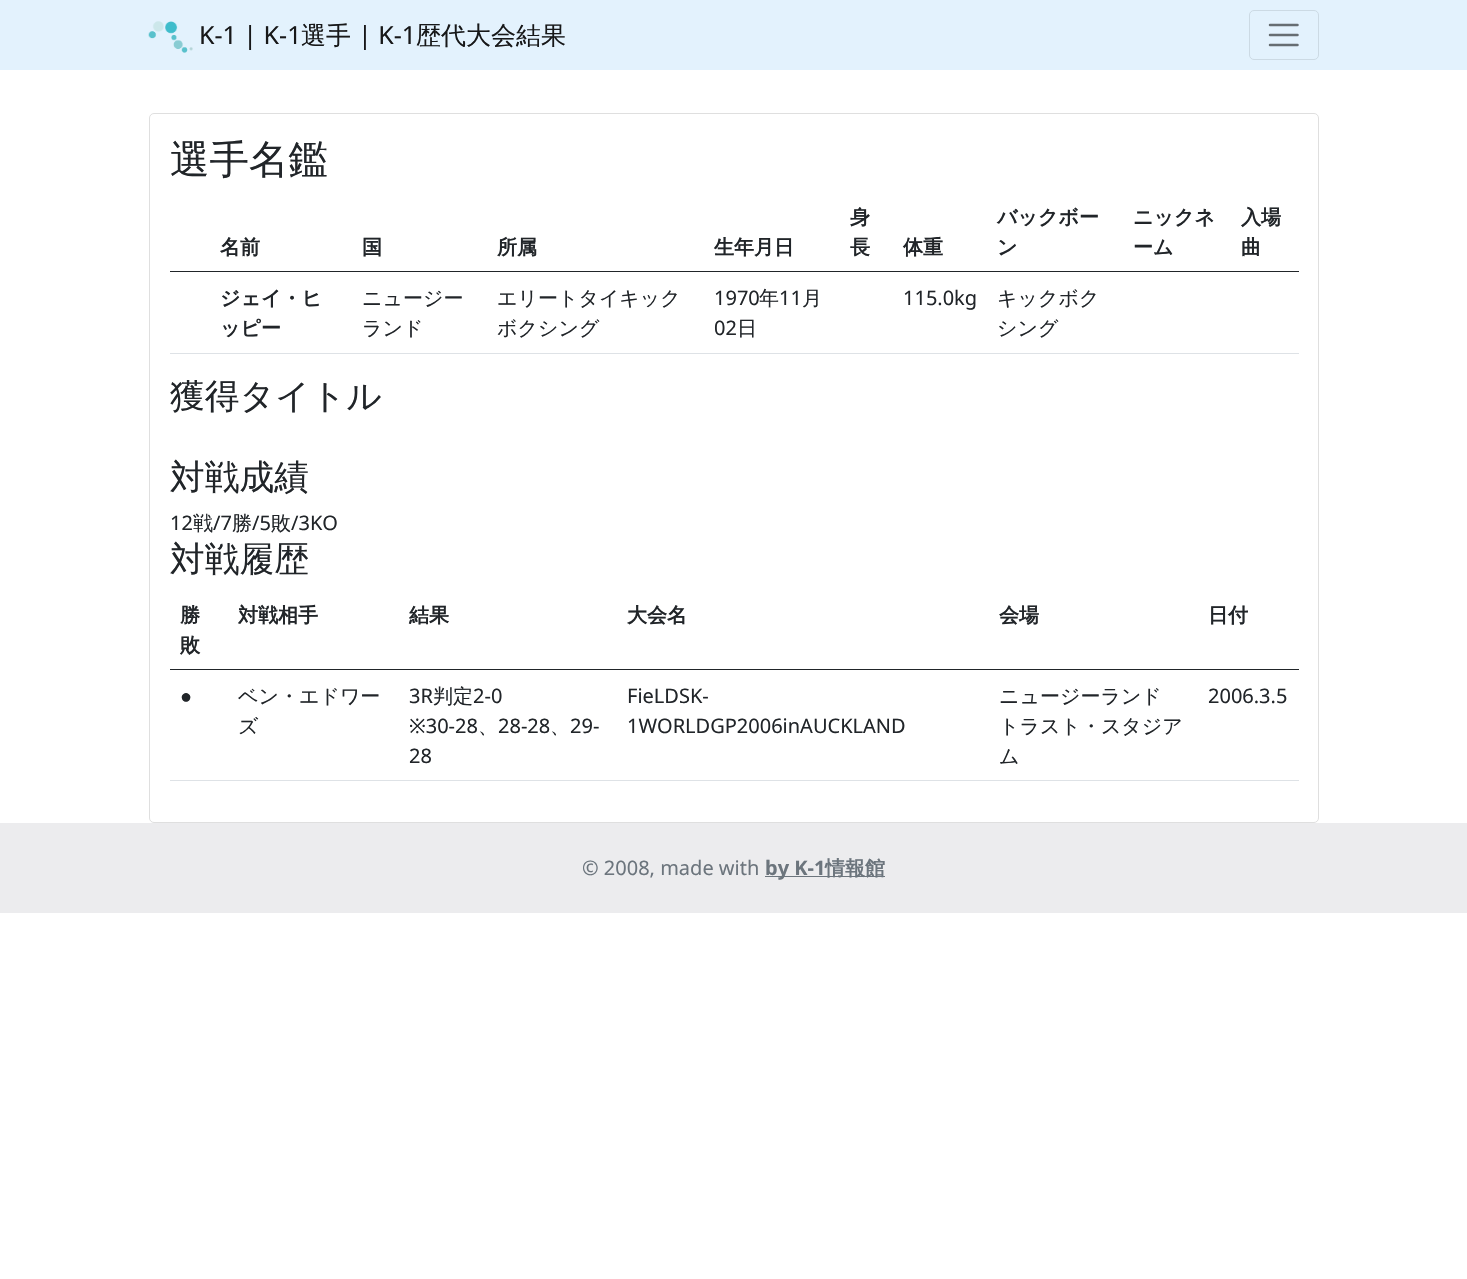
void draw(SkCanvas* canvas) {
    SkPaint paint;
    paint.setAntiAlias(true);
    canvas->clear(0xFFFFFFFF);
    paint.setColor(0xFFE3F2FD);
    canvas->drawRect(SkRect::MakeXYWH(0, 0, 1467, 70), paint);
    canvas->drawImageRect(SkImages::DeferredFromEncodedData(SkData::MakeFromFileName("img1.png")), SkRect::MakeXYWH(148, 21, 45, 32), SkSamplingOptions());
    SkFont font1(fontMgr->matchFamilyStyle("Noto Sans", SkFontStyle::Normal()), 25);
    font1.setSubpixel(true);
    paint.setColor(0xFF171819);
    canvas->drawString("K-1 | K-1", 199, 44, font1, paint);
    SkFont font2(fontMgr->matchFamilyStyle("WenQuanYi Zen Hei", SkFontStyle(500, SkFontStyle::kNormal_Width, SkFontStyle::kUpright_Slant)), 25);
    font2.setSubpixel(true);
    canvas->drawString("選手", 301, 44, font2, paint);
    canvas->drawString("| K-1", 358, 44, font1, paint);
    canvas->drawString("歴代大会結果", 416, 44, font2, paint);
    paint.setStyle(SkPaint::kStroke_Style);
    paint.setStrokeWidth(1);
    paint.setColor(0xFFCCDAE4);
    canvas->drawRoundRect(SkRect::MakeXYWH(1249.5f, 10.5f, 69, 49), 4.5f, 4.5f, paint);
    paint.setStrokeWidth(2.5f);
    paint.setStrokeCap(SkPaint::kRound_Cap);
    paint.setColor(0xFF666D72);
    canvas->drawPath(SkPathBuilder().moveTo(1270, 25).lineTo(1297.5f, 25).moveTo(1270, 35).lineTo(1297.5f, 35).moveTo(1270, 45).lineTo(1297.5f, 45).detach(), paint);
    paint.setStrokeWidth(1);
    paint.setStrokeCap(SkPaint::kButt_Cap);
    paint.setColor(0xFFDFDFDF);
    canvas->drawRoundRect(SkRect::MakeXYWH(149.5f, 113.5f, 1169, 709), 4.5f, 4.5f, paint);
    SkFont font3(fontMgr->matchFamilyStyle("WenQuanYi Zen Hei", SkFontStyle(500, SkFontStyle::kNormal_Width, SkFontStyle::kUpright_Slant)), 39.5f);
    font3.setSubpixel(true);
    paint.setStyle(SkPaint::kFill_Style);
    paint.setColor(0xFF212529);
    canvas->drawString("選手名鑑", 170, 173, font3, paint);
    SkFont font4(fontMgr->matchFamilyStyle("WenQuanYi Zen Hei", SkFontStyle::Bold()), 20);
    font4.setSubpixel(true);
    canvas->drawString("名前", 220, 254, font4, paint);
    canvas->drawString("国", 362, 254, font4, paint);
    canvas->drawString("所属", 497, 254, font4, paint);
    canvas->drawString("生年月日", 714, 254, font4, paint);
    canvas->drawString("身", 850, 224, font4, paint);
    canvas->drawString("長", 850, 254, font4, paint);
    canvas->drawString("体重", 903, 254, font4, paint);
    canvas->drawString("バックボー", 997, 224, font4, paint);
    canvas->drawString("ン", 997, 254, font4, paint);
    canvas->drawString("ニックネ", 1133, 224, font4, paint);
    canvas->drawString("ーム", 1133, 254, font4, paint);
    canvas->drawRect(SkRect::MakeXYWH(170, 271, 1129, 1), paint);
    canvas->drawString("入場", 1241, 224, font4, paint);
    canvas->drawString("曲", 1241, 254, font4, paint);
    canvas->drawString("ジェイ・ヒ", 220, 305, font4, paint);
    canvas->drawString("ッピー", 220, 335, font4, paint);
    SkFont font5(fontMgr->matchFamilyStyle("WenQuanYi Zen Hei", SkFontStyle(500, SkFontStyle::kNormal_Width, SkFontStyle::kUpright_Slant)), 20);
    font5.setSubpixel(true);
    canvas->drawString("ニュージー", 362, 305, font5, paint);
    canvas->drawString("ランド", 362, 335, font5, paint);
    canvas->drawString("エリートタイキック", 497, 305, font5, paint);
    canvas->drawString("ボクシング", 497, 335, font5, paint);
    SkFont font6(fontMgr->matchFamilyStyle("Noto Sans", SkFontStyle::Normal()), 20);
    font6.setSubpixel(true);
    canvas->drawString("1970", 714, 305, font6, paint);
    canvas->drawString("年", 759, 305, font5, paint);
    canvas->drawString("11", 779, 305, font6, paint);
    canvas->drawString("月", 802, 305, font5, paint);
    canvas->drawString("02", 714, 335, font6, paint);
    canvas->drawString("日", 737, 335, font5, paint);
    canvas->drawString("115.0kg", 903, 305, font6, paint);
    canvas->drawString("キックボク", 997, 305, font5, paint);
    canvas->drawString("シング", 997, 335, font5, paint);
    paint.setColor(0xFFDEE2E6);
    canvas->drawRect(SkRect::MakeXYWH(170, 353, 1129, 1), paint);
    SkFont font7(fontMgr->matchFamilyStyle("WenQuanYi Zen Hei", SkFontStyle(500, SkFontStyle::kNormal_Width, SkFontStyle::kUpright_Slant)), 34.75f);
    font7.setSubpixel(true);
    paint.setColor(0xFF212529);
    canvas->drawString("獲得タイトル", 170, 408, font7, paint);
    canvas->drawString("対戦成績", 170, 489, font7, paint);
    canvas->drawString("12", 170, 530, font6, paint);
    canvas->drawString("戦", 193, 530, font5, paint);
    canvas->drawString("/7", 213, 530, font6, paint);
    canvas->drawString("勝", 232, 530, font5, paint);
    canvas->drawString("/5", 252, 530, font6, paint);
    canvas->drawString("敗", 271, 530, font5, paint);
    canvas->drawString("/3KO", 291, 530, font6, paint);
    canvas->drawString("対戦履歴", 170, 571, font7, paint);
    canvas->drawString("勝", 180, 622, font4, paint);
    canvas->drawString("敗", 180, 652, font4, paint);
    canvas->drawString("対戦相手", 238, 622, font4, paint);
    canvas->drawString("結果", 409, 622, font4, paint);
    canvas->drawString("大会名", 627, 622, font4, paint);
    canvas->drawString("会場", 999, 622, font4, paint);
    canvas->drawRect(SkRect::MakeXYWH(170, 669, 1129, 1), paint);
    canvas->drawString("日付", 1208, 622, font4, paint);
    SkFont font8(fontMgr->matchFamilyStyle("Liberation Sans", SkFontStyle::Normal()), 20);
    font8.setSubpixel(true);
    canvas->drawString("●", 180, 703, font8, paint);
    canvas->drawString("ベン・エドワー", 238, 703, font5, paint);
    canvas->drawString("ズ", 238, 733, font5, paint);
    canvas->drawString("3R", 409, 703, font6, paint);
    canvas->drawString("判定", 433, 703, font5, paint);
    canvas->drawString("2-0", 473, 703, font6, paint);
    canvas->drawString("※30-28", 409, 733, font6, paint);
    canvas->drawString("、", 478, 733, font5, paint);
    canvas->drawString("28-28", 498, 733, font6, paint);
    canvas->drawString("、", 550, 733, font5, paint);
    canvas->drawString("29-", 570, 733, font6, paint);
    canvas->drawString("28", 409, 763, font6, paint);
    canvas->drawString("FieLDSK-", 627, 703, font6, paint);
    canvas->drawString("1WORLDGP2006inAUCKLAND", 627, 733, font6, paint);
    canvas->drawString("ニュージーランド", 999, 703, font5, paint);
    canvas->drawString("トラスト・スタジア", 999, 733, font5, paint);
    canvas->drawString("ム", 999, 763, font5, paint);
    paint.setColor(0xFFDEE2E6);
    canvas->drawRect(SkRect::MakeXYWH(170, 780, 1129, 1), paint);
    paint.setColor(0xFF212529);
    canvas->drawString("2006.3.5", 1208, 703, font6, paint);
    paint.setColor(0xFFECECEE);
    canvas->drawRect(SkRect::MakeXYWH(0, 823, 1467, 90), paint);
    paint.setColor(0xFF6C757D);
    canvas->drawString("© 2008, made with", 582, 875, font6, paint);
    canvas->drawRect(SkRect::MakeXYWH(765, 876, 120, 1), paint);
    SkFont font9(fontMgr->matchFamilyStyle("Noto Sans", SkFontStyle::Bold()), 20);
    font9.setSubpixel(true);
    canvas->drawString("by K-1", 765, 875, font9, paint);
    canvas->drawString("情報館", 825, 875, font4, paint);
}
